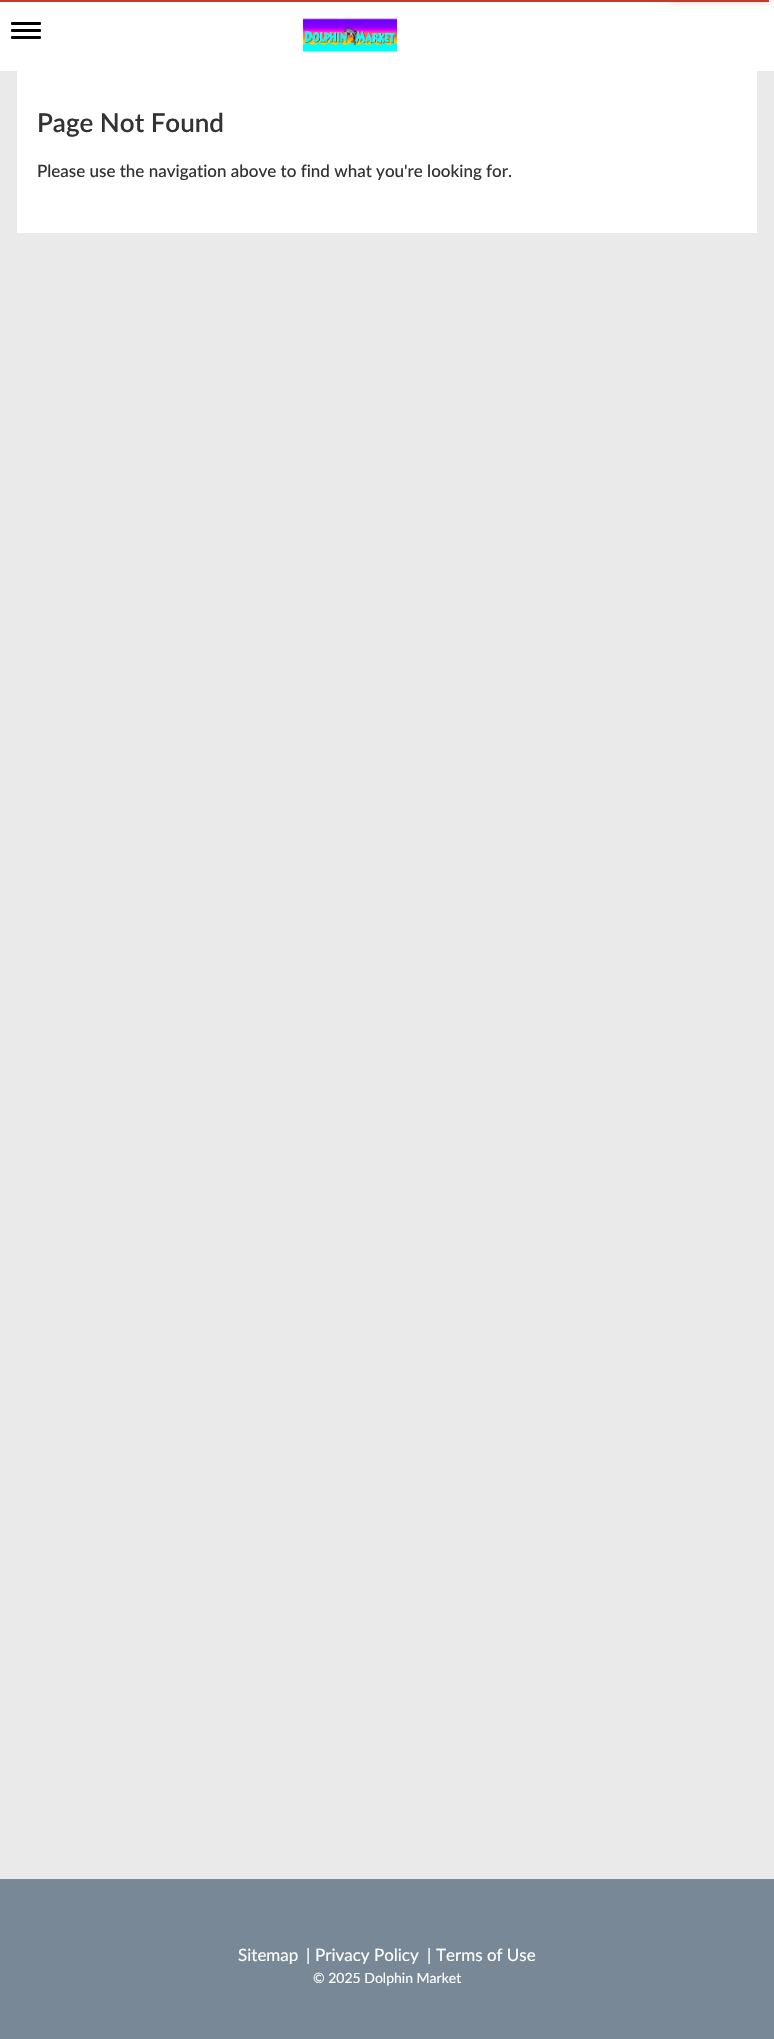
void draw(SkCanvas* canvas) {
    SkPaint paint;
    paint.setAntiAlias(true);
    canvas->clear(0xFFEAEAEA);
    paint.setColor(0xFFFFFFFF);
    canvas->drawRect(SkRect::MakeXYWH(0, 0, 774, 71), paint);
    paint.setColor(0xFFBF3B2E);
    canvas->drawRect(SkRect::MakeXYWH(0, 0, 769, 2), paint);
    paint.setMaskFilter(SkMaskFilter::MakeBlur(kNormal_SkBlurStyle, 2.5f));
    canvas->drawRect(SkRect::MakeXYWH(670, -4, 100, 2), paint);
    paint.setMaskFilter(nullptr);
    paint.setMaskFilter(SkMaskFilter::MakeBlur(kNormal_SkBlurStyle, 5));
    canvas->drawRect(SkRect::MakeXYWH(670, -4, 100, 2), paint);
    paint.setMaskFilter(nullptr);
    paint.setColor(0xFF000000);
    canvas->drawRoundRect(SkRect::MakeXYWH(11, 22, 30, 3), 1, 1, paint);
    canvas->drawRoundRect(SkRect::MakeXYWH(11, 29, 30, 3), 1, 1, paint);
    canvas->drawRoundRect(SkRect::MakeXYWH(11, 36, 30, 3), 1, 1, paint);
    canvas->drawImageRect(SkImages::DeferredFromEncodedData(SkData::MakeFromFileName("img1.png")), SkRect::MakeXYWH(303, 18, 94, 34), SkSamplingOptions());
    paint.setColor(0xFFFFFFFF);
    canvas->drawRect(SkRect::MakeXYWH(17, 71, 740, 162), paint);
    SkFont font1(fontMgr->matchFamilyStyle("Lato", SkFontStyle(600, SkFontStyle::kNormal_Width, SkFontStyle::kUpright_Slant)), 26);
    font1.setSubpixel(true);
    paint.setColor(0xFF333333);
    canvas->drawString("Page Not Found", 37, 132, font1, paint);
    SkFont font2(fontMgr->matchFamilyStyle("Lato", SkFontStyle(500, SkFontStyle::kNormal_Width, SkFontStyle::kUpright_Slant)), 17);
    font2.setSubpixel(true);
    canvas->drawString("Please use the navigation above to find what you're looking for.", 37, 177, font2, paint);
    paint.setColor(0xFF788897);
    canvas->drawRect(SkRect::MakeXYWH(0, 1879, 774, 160), paint);
    SkFont font3(fontMgr->matchFamilyStyle("Lato", SkFontStyle::Normal()), 17);
    font3.setSubpixel(true);
    paint.setColor(0xFFFFFFFF);
    canvas->drawString("Sitemap", 238, 1961, font3, paint);
    canvas->drawString("|", 306, 1961, font3, paint);
    canvas->drawString("Privacy Policy", 315, 1961, font3, paint);
    canvas->drawString("|", 427, 1961, font3, paint);
    canvas->drawString("Terms of Use", 436, 1961, font3, paint);
    SkFont font4(fontMgr->matchFamilyStyle("Lato", SkFontStyle::Normal()), 14);
    font4.setSubpixel(true);
    canvas->drawString("© 2025 Dolphin Market", 313, 1983, font4, paint);
}
